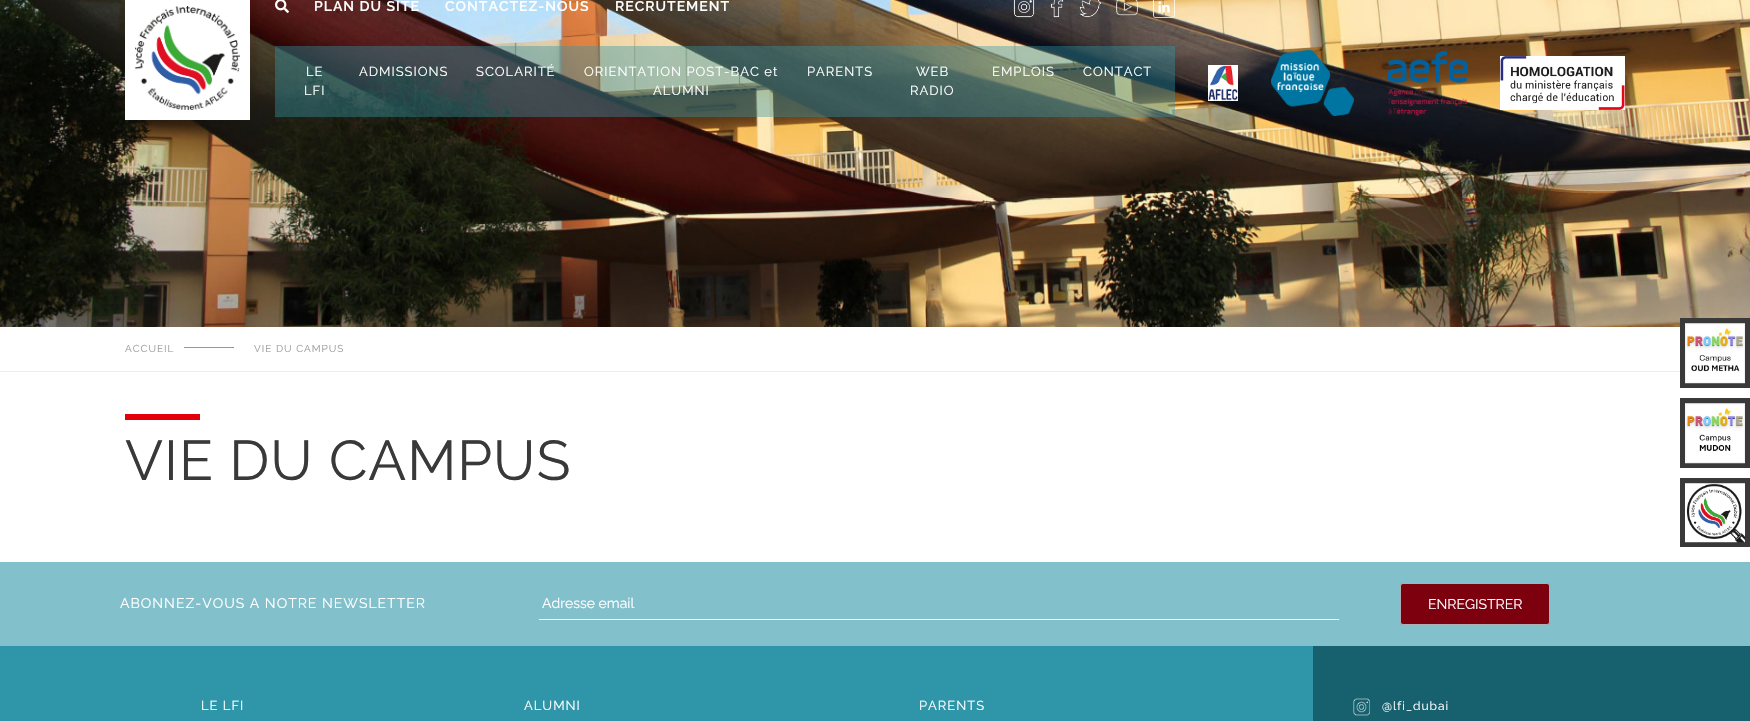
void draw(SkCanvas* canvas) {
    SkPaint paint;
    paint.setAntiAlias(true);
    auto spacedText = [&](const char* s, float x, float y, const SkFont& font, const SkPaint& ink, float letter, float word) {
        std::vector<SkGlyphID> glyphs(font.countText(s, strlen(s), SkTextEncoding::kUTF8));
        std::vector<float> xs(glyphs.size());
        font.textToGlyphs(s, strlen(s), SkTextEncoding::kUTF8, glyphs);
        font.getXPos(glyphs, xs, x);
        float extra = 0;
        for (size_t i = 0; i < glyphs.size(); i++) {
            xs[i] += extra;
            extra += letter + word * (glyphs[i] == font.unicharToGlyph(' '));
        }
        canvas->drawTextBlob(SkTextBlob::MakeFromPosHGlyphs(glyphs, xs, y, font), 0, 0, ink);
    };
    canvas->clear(0xFFFFFFFF);
    canvas->drawImageRect(SkImages::DeferredFromEncodedData(SkData::MakeFromFileName("img1.png")), SkRect::MakeXYWH(0, 0, 1750, 327), SkSamplingOptions());
    paint.setColor(0xFFFFFFFF);
    canvas->drawRect(SkRect::MakeXYWH(125, 0, 125, 120), paint);
    canvas->drawImageRect(SkImages::DeferredFromEncodedData(SkData::MakeFromFileName("img2.png")), SkRect::MakeXYWH(135, 6, 105, 104), SkSamplingOptions());
    canvas->drawImageRect(SkImages::DeferredFromEncodedData(SkData::MakeFromFileName("img3.png")), SkRect::MakeXYWH(275, 0, 14, 13), SkSamplingOptions());
    SkFont font1(fontMgr->matchFamilyStyle("Raleway", SkFontStyle(600, SkFontStyle::kNormal_Width, SkFontStyle::kUpright_Slant)), 14);
    font1.setSubpixel(true);
    spacedText("PLAN DU SITE", 314, 11, font1, paint, 1, 0);
    spacedText("CONTACTEZ-NOUS", 445, 11, font1, paint, 1, 0);
    spacedText("RECRUTEMENT", 615, 11, font1, paint, 1, 0);
    canvas->drawImageRect(SkImages::DeferredFromEncodedData(SkData::MakeFromFileName("img4.png")), SkRect::MakeXYWH(1013, 0, 22, 18), SkSamplingOptions());
    canvas->drawImageRect(SkImages::DeferredFromEncodedData(SkData::MakeFromFileName("img5.png")), SkRect::MakeXYWH(1050, 0, 14, 18), SkSamplingOptions());
    canvas->drawImageRect(SkImages::DeferredFromEncodedData(SkData::MakeFromFileName("img6.png")), SkRect::MakeXYWH(1079, 0, 22, 18), SkSamplingOptions());
    canvas->drawImageRect(SkImages::DeferredFromEncodedData(SkData::MakeFromFileName("img7.png")), SkRect::MakeXYWH(1116, 0, 22, 16), SkSamplingOptions());
    canvas->drawImageRect(SkImages::DeferredFromEncodedData(SkData::MakeFromFileName("img8.png")), SkRect::MakeXYWH(1153, 0, 22, 18), SkSamplingOptions());
    paint.setColor(0x662F96A9);
    canvas->drawRect(SkRect::MakeXYWH(275, 46, 900, 71), paint);
    SkFont font2(fontMgr->matchFamilyStyle("Raleway", SkFontStyle::Normal()), 13);
    font2.setSubpixel(true);
    paint.setColor(0xFFFFFFFF);
    spacedText("LE", 306, 76, font2, paint, 1, 0);
    spacedText("LFI", 304, 95, font2, paint, 1, 0);
    spacedText("ADMISSIONS", 359, 76, font2, paint, 1, 0);
    spacedText("SCOLARITÉ", 476, 76, font2, paint, 1, 0);
    spacedText("ORIENTATION POST-BAC et", 584, 76, font2, paint, 1, 0);
    spacedText("ALUMNI", 653, 95, font2, paint, 1, 0);
    spacedText("PARENTS", 807, 76, font2, paint, 1, 0);
    spacedText("WEB", 916, 76, font2, paint, 1, 0);
    spacedText("RADIO", 910, 95, font2, paint, 1, 0);
    spacedText("EMPLOIS", 992, 76, font2, paint, 1, 0);
    spacedText("CONTACT", 1083, 76, font2, paint, 1, 0);
    canvas->drawImageRect(SkImages::DeferredFromEncodedData(SkData::MakeFromFileName("img9.png")), SkRect::MakeXYWH(1208, 65, 30, 36), SkSamplingOptions());
    canvas->drawImageRect(SkImages::DeferredFromEncodedData(SkData::MakeFromFileName("img10.png")), SkRect::MakeXYWH(1271, 50, 83, 66), SkSamplingOptions());
    canvas->drawImageRect(SkImages::DeferredFromEncodedData(SkData::MakeFromFileName("img11.png")), SkRect::MakeXYWH(1387, 50, 81, 66), SkSamplingOptions());
    canvas->drawImageRect(SkImages::DeferredFromEncodedData(SkData::MakeFromFileName("img12.png")), SkRect::MakeXYWH(1500, 56, 125, 54), SkSamplingOptions());
    paint.setColor(0xFFEEEEEE);
    canvas->drawRect(SkRect::MakeXYWH(0, 371, 1680, 1), paint);
    SkFont font3(fontMgr->matchFamilyStyle("Raleway", SkFontStyle::Normal()), 10);
    font3.setSubpixel(true);
    paint.setColor(0xFF9B9B9B);
    spacedText("ACCUEIL", 125, 352, font3, paint, 1, 0);
    paint.setColor(0xFF979797);
    canvas->drawRect(SkRect::MakeXYWH(184, 347, 50, 1), paint);
    paint.setColor(0xFF9B9B9B);
    spacedText("VIE DU CAMPUS", 254, 352, font3, paint, 1, 0);
    paint.setColor(0xFFE3000A);
    canvas->drawRect(SkRect::MakeXYWH(125, 414, 75, 6), paint);
    SkFont font4(fontMgr->matchFamilyStyle("Raleway", SkFontStyle::Normal()), 56);
    font4.setSubpixel(true);
    paint.setColor(0xFF393939);
    spacedText("VIE DU CAMPUS", 125, 480, font4, paint, 1, 0);
    canvas->drawRect(SkRect::MakeXYWH(1680, 318, 70, 70), paint);
    canvas->drawImageRect(SkImages::DeferredFromEncodedData(SkData::MakeFromFileName("img13.png")), SkRect::MakeXYWH(1685, 323, 60, 61), SkSamplingOptions());
    canvas->drawRect(SkRect::MakeXYWH(1680, 398, 70, 70), paint);
    canvas->drawImageRect(SkImages::DeferredFromEncodedData(SkData::MakeFromFileName("img14.png")), SkRect::MakeXYWH(1685, 403, 60, 61), SkSamplingOptions());
    canvas->drawRect(SkRect::MakeXYWH(1680, 478, 70, 69), paint);
    canvas->drawImageRect(SkImages::DeferredFromEncodedData(SkData::MakeFromFileName("img15.png")), SkRect::MakeXYWH(1685, 483, 60, 60), SkSamplingOptions());
    paint.setColor(0xFF82C0CC);
    canvas->drawRect(SkRect::MakeXYWH(0, 562, 1750, 84), paint);
    SkFont font5(fontMgr->matchFamilyStyle("Raleway", SkFontStyle::Normal()), 14);
    font5.setSubpixel(true);
    paint.setColor(0xFFFFFFFF);
    spacedText("ABONNEZ-VOUS A NOTRE NEWSLETTER", 120, 608, font5, paint, 1, 0);
    canvas->drawRect(SkRect::MakeXYWH(539, 619, 800, 1), paint);
    canvas->drawString("Adresse email", 542, 608, font5, paint);
    paint.setColor(0xFF7D000F);
    canvas->drawRoundRect(SkRect::MakeXYWH(1400.5f, 583.5f, 149, 41), 2.5f, 2.5f, paint);
    paint.setStyle(SkPaint::kStroke_Style);
    paint.setStrokeWidth(1);
    paint.setColor(0xFFABB0B2);
    canvas->drawRoundRect(SkRect::MakeXYWH(1400.5f, 583.5f, 149, 41), 2.5f, 2.5f, paint);
    paint.setStyle(SkPaint::kFill_Style);
    paint.setColor(0xFFFFFFFF);
    canvas->drawString("ENREGISTRER", 1428, 609, font5, paint);
    paint.setColor(0xFF2F96A9);
    canvas->drawRect(SkRect::MakeXYWH(0, 646, 1313, 75), paint);
    paint.setColor(0xFFFFFFFF);
    spacedText("LE LFI", 201, 710, font2, paint, 1, 0);
    spacedText("ALUMNI", 524, 710, font2, paint, 1, 0);
    spacedText("PARENTS", 919, 710, font2, paint, 1, 0);
    paint.setColor(0xFF17616E);
    canvas->drawRect(SkRect::MakeXYWH(1313, 646, 437, 75), paint);
    canvas->drawImageRect(SkImages::DeferredFromEncodedData(SkData::MakeFromFileName("img16.png")), SkRect::MakeXYWH(1353, 698, 17, 18), SkSamplingOptions());
    SkFont font6(fontMgr->matchFamilyStyle("Raleway", SkFontStyle::Normal()), 12);
    font6.setSubpixel(true);
    paint.setColor(0xFFFFFFFF);
    spacedText("@lfi_dubai", 1382, 710, font6, paint, 1, 0);
}
